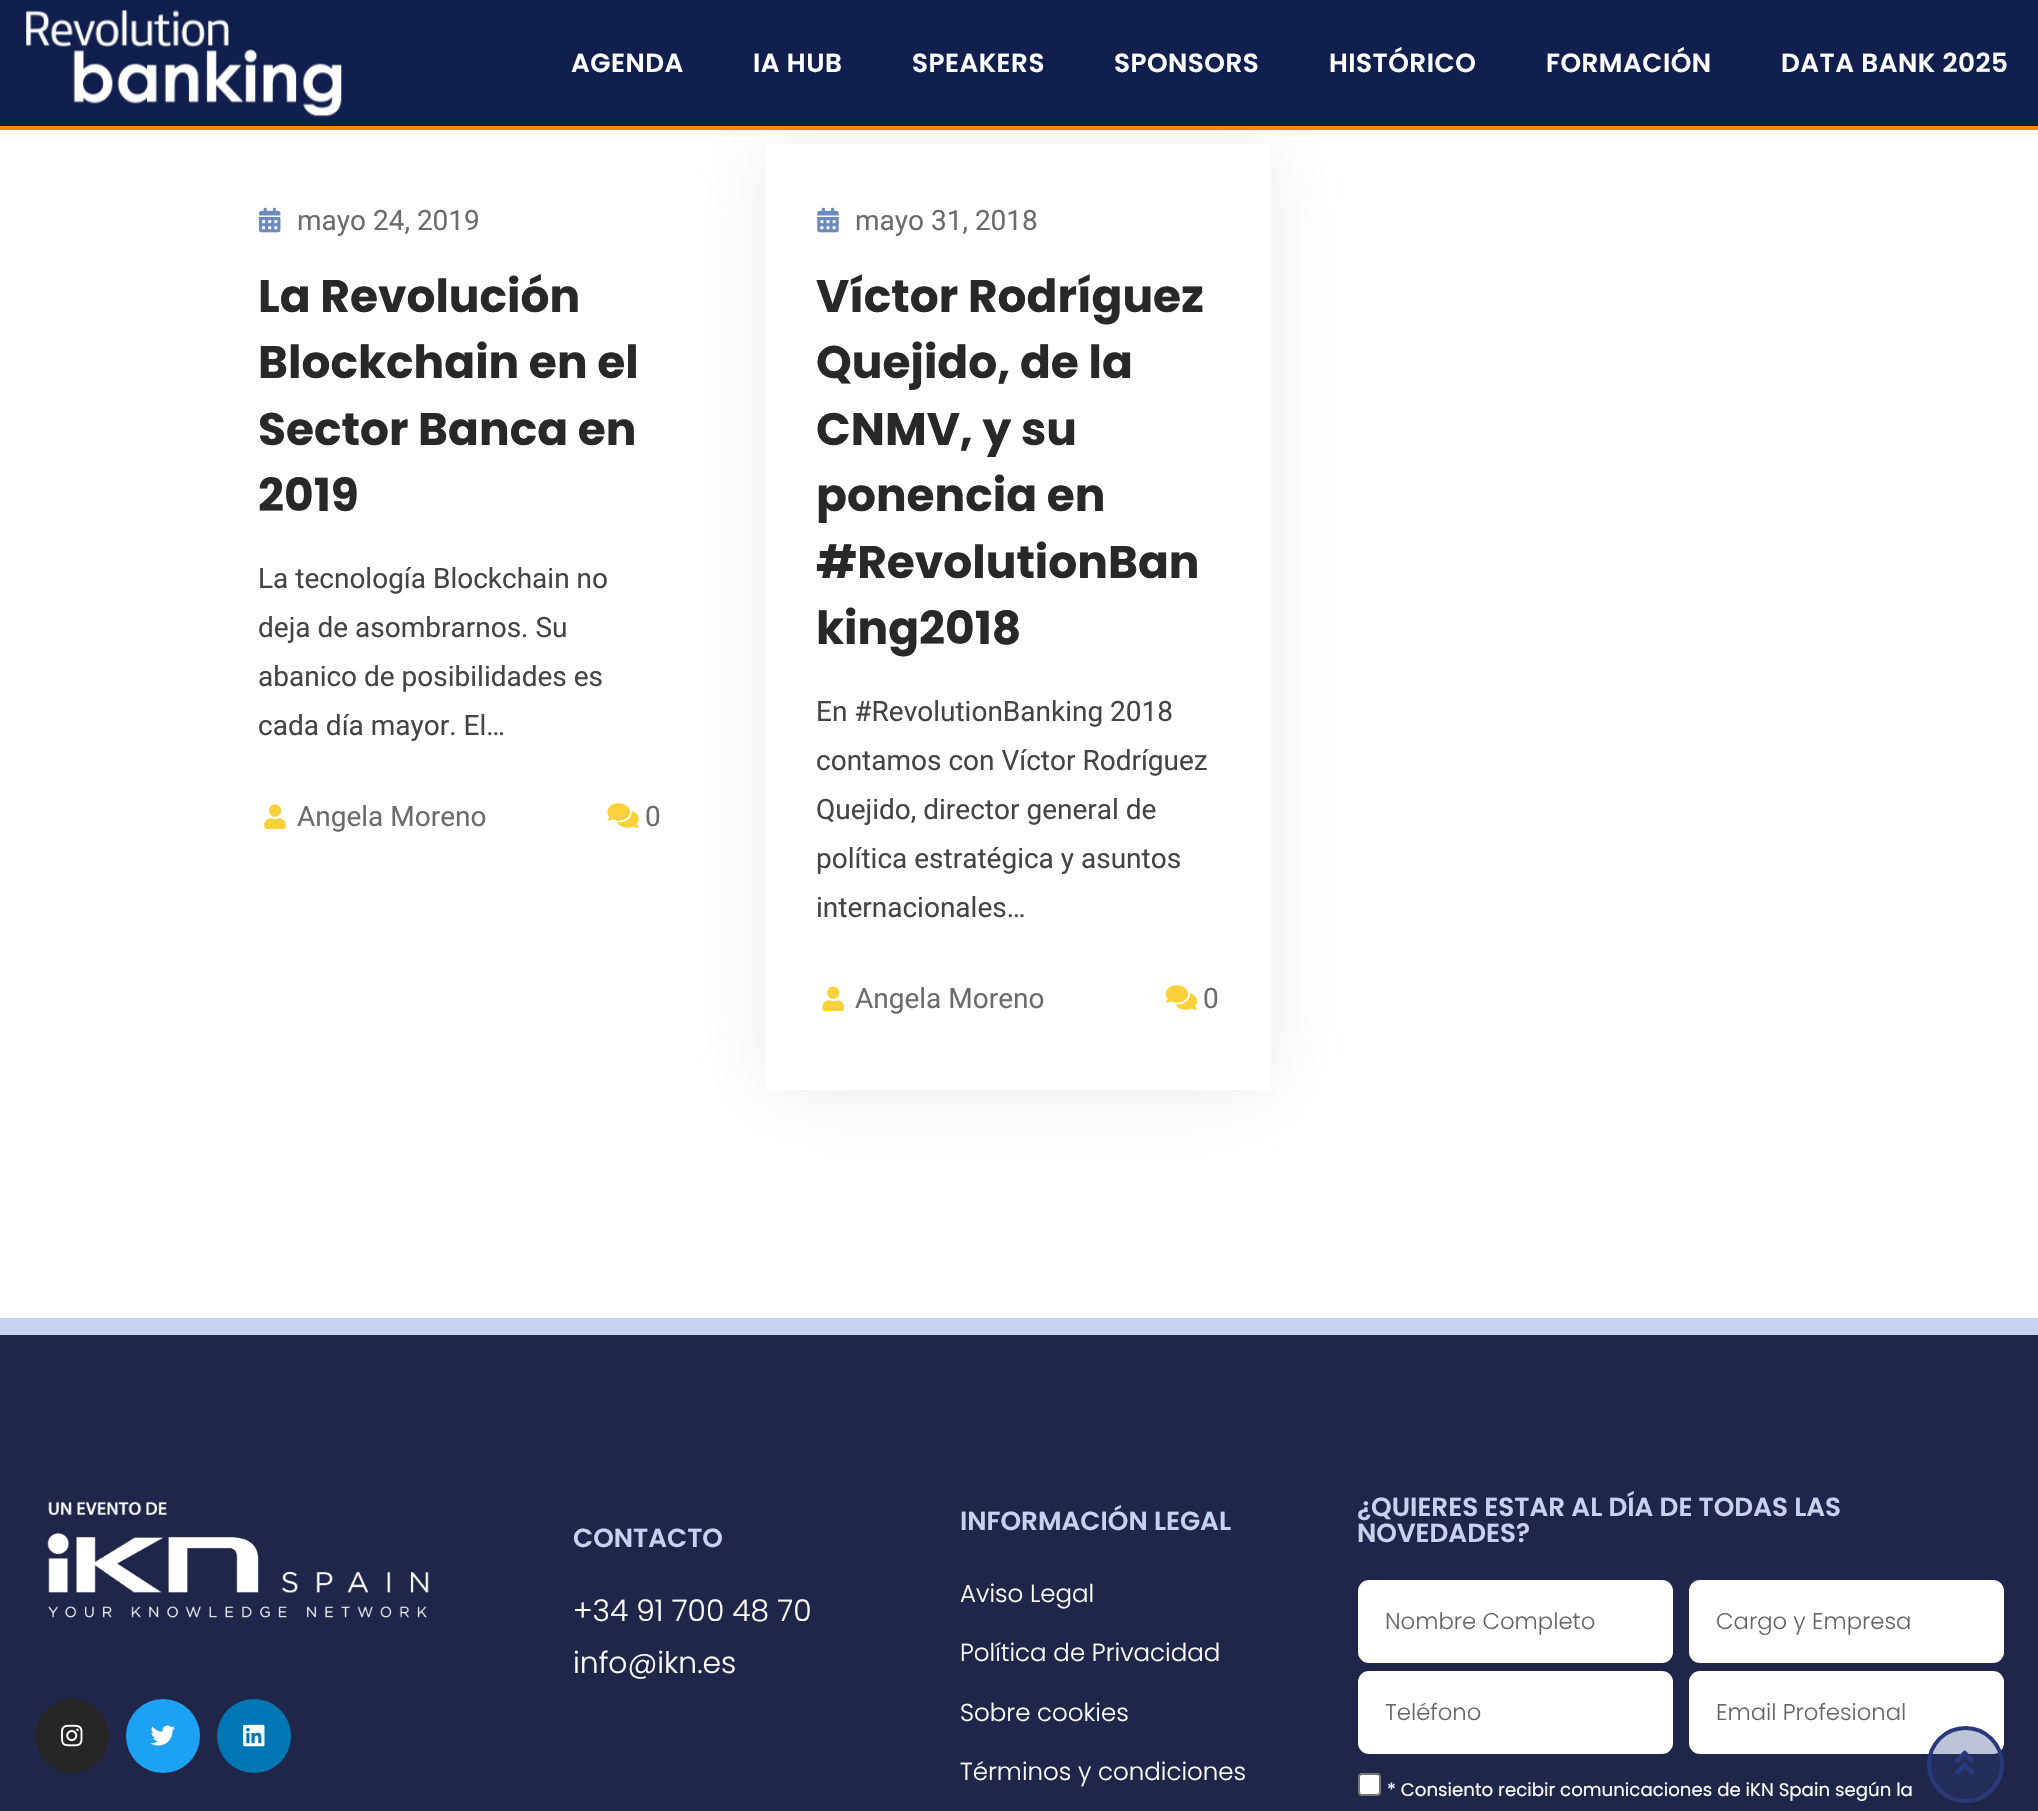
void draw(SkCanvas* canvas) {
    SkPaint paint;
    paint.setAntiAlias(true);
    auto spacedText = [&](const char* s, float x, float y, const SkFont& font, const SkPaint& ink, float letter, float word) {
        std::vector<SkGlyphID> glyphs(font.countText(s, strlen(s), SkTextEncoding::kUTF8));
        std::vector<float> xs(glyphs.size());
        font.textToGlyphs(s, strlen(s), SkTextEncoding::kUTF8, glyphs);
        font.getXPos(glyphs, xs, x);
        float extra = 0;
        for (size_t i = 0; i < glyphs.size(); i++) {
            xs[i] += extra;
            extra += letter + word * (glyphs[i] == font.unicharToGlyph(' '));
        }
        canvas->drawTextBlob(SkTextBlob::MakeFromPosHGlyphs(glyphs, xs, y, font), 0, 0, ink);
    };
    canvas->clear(0xFFFFFFFF);
    paint.setColor(0x80D8D8D8);
    paint.setMaskFilter(SkMaskFilter::MakeBlur(kNormal_SkBlurStyle, 35));
    canvas->drawRect(SkRect::MakeXYWH(765, 144, 506, 946), paint);
    paint.setMaskFilter(nullptr);
    paint.setColor(0xFF101F4E);
    canvas->drawRect(SkRect::MakeXYWH(0, 0, 2038, 126), paint);
    paint.setColor(0xFFFF8200);
    canvas->drawRect(SkRect::MakeXYWH(0, 126, 2038, 4), paint);
    canvas->drawImageRect(SkImages::DeferredFromEncodedData(SkData::MakeFromFileName("img1.png")), SkRect::MakeXYWH(26, 10, 316, 107), SkSamplingOptions());
    SkFont font1(fontMgr->matchFamilyStyle("Poppins", SkFontStyle(600, SkFontStyle::kNormal_Width, SkFontStyle::kUpright_Slant)), 26.25f);
    font1.setSubpixel(true);
    paint.setColor(0xFFFFFFFF);
    spacedText("AGENDA", 571, 72, font1, paint, 0.5f, 0);
    spacedText("IA HUB", 753, 72, font1, paint, 0.5f, 0);
    spacedText("SPEAKERS", 912, 72, font1, paint, 0.5f, 0);
    spacedText("SPONSORS", 1114, 72, font1, paint, 0.5f, 0);
    spacedText("HISTÓRICO", 1329, 72, font1, paint, 0.5f, 0);
    spacedText("FORMACIÓN", 1546, 72, font1, paint, 0.5f, 0);
    spacedText("DATA BANK 2025", 1781, 72, font1, paint, 0.5f, 0);
    canvas->drawImageRect(SkImages::DeferredFromEncodedData(SkData::MakeFromFileName("img2.png")), SkRect::MakeXYWH(259, 207, 22, 26), SkSamplingOptions());
    SkFont font2(fontMgr->matchFamilyStyle("Roboto", SkFontStyle::Normal()), 28);
    font2.setSubpixel(true);
    paint.setColor(0xFF6C6C6C);
    canvas->drawString("mayo 24, 2019", 297, 230, font2, paint);
    SkFont font3(fontMgr->matchFamilyStyle("Poppins", SkFontStyle::Bold()), 45.5f);
    font3.setSubpixel(true);
    paint.setColor(0xFF282828);
    canvas->drawString("La Revolución", 258, 312, font3, paint);
    canvas->drawString("Blockchain en el", 258, 378, font3, paint);
    canvas->drawString("Sector Banca en", 258, 445, font3, paint);
    canvas->drawString("2019", 258, 511, font3, paint);
    paint.setColor(0xFF444444);
    canvas->drawString("La tecnología Blockchain no", 258, 588, font2, paint);
    canvas->drawString("deja de asombrarnos. Su", 258, 637, font2, paint);
    canvas->drawString("abanico de posibilidades es", 258, 686, font2, paint);
    canvas->drawString("cada día mayor. El…", 258, 735, font2, paint);
    canvas->drawImageRect(SkImages::DeferredFromEncodedData(SkData::MakeFromFileName("img3.png")), SkRect::MakeXYWH(264, 804, 22, 26), SkSamplingOptions());
    paint.setColor(0xFF6C6C6C);
    canvas->drawString("Angela Moreno", 297, 826, font2, paint);
    canvas->drawImageRect(SkImages::DeferredFromEncodedData(SkData::MakeFromFileName("img4.png")), SkRect::MakeXYWH(607, 803, 32, 25), SkSamplingOptions());
    canvas->drawString("0", 645, 826, font2, paint);
    paint.setColor(0xFFFFFFFF);
    canvas->drawRect(SkRect::MakeXYWH(765, 144, 506, 946), paint);
    canvas->drawImageRect(SkImages::DeferredFromEncodedData(SkData::MakeFromFileName("img5.png")), SkRect::MakeXYWH(817, 207, 22, 26), SkSamplingOptions());
    paint.setColor(0xFF6C6C6C);
    canvas->drawString("mayo 31, 2018", 855, 230, font2, paint);
    paint.setColor(0xFF282828);
    canvas->drawString("Víctor Rodríguez", 816, 312, font3, paint);
    canvas->drawString("Quejido, de la", 816, 378, font3, paint);
    canvas->drawString("CNMV, y su", 816, 445, font3, paint);
    canvas->drawString("ponencia en", 816, 511, font3, paint);
    canvas->drawString("#RevolutionBan", 816, 578, font3, paint);
    canvas->drawString("king2018", 816, 644, font3, paint);
    paint.setColor(0xFF444444);
    canvas->drawString("En #RevolutionBanking 2018", 816, 721, font2, paint);
    canvas->drawString("contamos con Víctor Rodríguez", 816, 770, font2, paint);
    canvas->drawString("Quejido, director general de", 816, 819, font2, paint);
    canvas->drawString("política estratégica y asuntos", 816, 868, font2, paint);
    canvas->drawString("internacionales…", 816, 917, font2, paint);
    canvas->drawImageRect(SkImages::DeferredFromEncodedData(SkData::MakeFromFileName("img6.png")), SkRect::MakeXYWH(822, 986, 22, 26), SkSamplingOptions());
    paint.setColor(0xFF6C6C6C);
    canvas->drawString("Angela Moreno", 855, 1008, font2, paint);
    canvas->drawImageRect(SkImages::DeferredFromEncodedData(SkData::MakeFromFileName("img7.png")), SkRect::MakeXYWH(1165, 985, 32, 25), SkSamplingOptions());
    canvas->drawString("0", 1203, 1008, font2, paint);
    paint.setColor(0xFF20264A);
    canvas->drawRect(SkRect::MakeXYWH(0, 1335, 2038, 476), paint);
    paint.setColor(0xFFC5D3EE);
    canvas->drawRect(SkRect::MakeXYWH(0, 1318, 2038, 17), paint);
    canvas->drawImageRect(SkImages::DeferredFromEncodedData(SkData::MakeFromFileName("img8.png")), SkRect::MakeXYWH(47, 1501, 382, 117), SkSamplingOptions());
    paint.setColor(0xFF262626);
    canvas->drawCircle(72, 1736, 37, paint);
    canvas->drawImageRect(SkImages::DeferredFromEncodedData(SkData::MakeFromFileName("img9.png")), SkRect::MakeXYWH(61, 1724, 22, 23), SkSamplingOptions());
    paint.setColor(0xFF1DA1F2);
    canvas->drawCircle(163, 1736, 37, paint);
    canvas->drawImageRect(SkImages::DeferredFromEncodedData(SkData::MakeFromFileName("img10.png")), SkRect::MakeXYWH(150, 1725, 25, 21), SkSamplingOptions());
    paint.setColor(0xFF0077B5);
    canvas->drawCircle(254, 1736, 37, paint);
    canvas->drawImageRect(SkImages::DeferredFromEncodedData(SkData::MakeFromFileName("img11.png")), SkRect::MakeXYWH(243, 1724, 22, 23), SkSamplingOptions());
    paint.setColor(0xFFC5D3EE);
    canvas->drawString("CONTACTO", 573, 1547, font1, paint);
    SkFont font4(fontMgr->matchFamilyStyle("Poppins", SkFontStyle(300, SkFontStyle::kNormal_Width, SkFontStyle::kUpright_Slant)), 29.75f);
    font4.setSubpixel(true);
    paint.setColor(0xFFFFFFFF);
    canvas->drawString("+34 91 700 48 70", 573, 1621, font4, paint);
    canvas->drawString("info@ikn.es", 573, 1673, font4, paint);
    paint.setColor(0xFFC5D3EE);
    canvas->drawString("INFORMACIÓN LEGAL", 960, 1530, font1, paint);
    SkFont font5(fontMgr->matchFamilyStyle("Poppins", SkFontStyle(300, SkFontStyle::kNormal_Width, SkFontStyle::kUpright_Slant)), 24.5f);
    font5.setSubpixel(true);
    paint.setColor(0xFFFFFFFF);
    canvas->drawString("Aviso Legal", 960, 1602, font5, paint);
    canvas->drawString("Política de Privacidad", 960, 1661, font5, paint);
    canvas->drawString("Sobre cookies", 960, 1721, font5, paint);
    canvas->drawString("Términos y condiciones", 960, 1780, font5, paint);
    paint.setColor(0xFFC5D3EE);
    canvas->drawString("¿QUIERES ESTAR AL DÍA DE TODAS LAS", 1357, 1516, font1, paint);
    canvas->drawString("NOVEDADES?", 1357, 1542, font1, paint);
    paint.setColor(0xFFFFFFFF);
    canvas->drawRoundRect(SkRect::MakeXYWH(1358, 1580, 315, 83), 11, 11, paint);
    SkFont font6(fontMgr->matchFamilyStyle("Poppins", SkFontStyle(300, SkFontStyle::kNormal_Width, SkFontStyle::kUpright_Slant)), 22.75f);
    font6.setSubpixel(true);
    paint.setColor(0xFF666666);
    canvas->drawString("Nombre Completo", 1385, 1629, font6, paint);
    paint.setColor(0xFFFFFFFF);
    canvas->drawRoundRect(SkRect::MakeXYWH(1689, 1580, 315, 83), 11, 11, paint);
    paint.setColor(0xFF666666);
    canvas->drawString("Cargo y Empresa", 1716, 1629, font6, paint);
    paint.setColor(0xFFFFFFFF);
    canvas->drawRoundRect(SkRect::MakeXYWH(1358, 1671, 315, 83), 11, 11, paint);
    paint.setColor(0xFF666666);
    canvas->drawString("Teléfono", 1385, 1720, font6, paint);
    paint.setColor(0xFFFFFFFF);
    canvas->drawRoundRect(SkRect::MakeXYWH(1689, 1671, 315, 83), 11, 11, paint);
    paint.setColor(0xFF666666);
    canvas->drawString("Email Profesional", 1716, 1720, font6, paint);
    paint.setColor(0xFFFFFFFF);
    canvas->drawRoundRect(SkRect::MakeXYWH(1359, 1774, 21, 21), 3, 3, paint);
    paint.setStyle(SkPaint::kStroke_Style);
    paint.setStrokeWidth(2);
    paint.setColor(0xFF767676);
    canvas->drawRoundRect(SkRect::MakeXYWH(1359, 1774, 21, 21), 3, 3, paint);
    SkFont font7(fontMgr->matchFamilyStyle("Poppins", SkFontStyle::Normal()), 18.2f);
    font7.setSubpixel(true);
    paint.setStyle(SkPaint::kFill_Style);
    paint.setColor(0xFFFFFFFF);
    canvas->drawString("* Consiento recibir comunicaciones de iKN Spain según la", 1387, 1796, font7, paint);
    paint.setColor(0x4D293A7C);
    canvas->drawCircle(1965.5f, 1764.5f, 36.5f, paint);
    paint.setStyle(SkPaint::kStroke_Style);
    paint.setStrokeWidth(4);
    paint.setColor(0xFF293A7C);
    canvas->drawCircle(1965.5f, 1764.5f, 36.5f, paint);
    canvas->drawImageRect(SkImages::DeferredFromEncodedData(SkData::MakeFromFileName("img12.png")), SkRect::MakeXYWH(1954, 1750, 21, 25), SkSamplingOptions());
}
